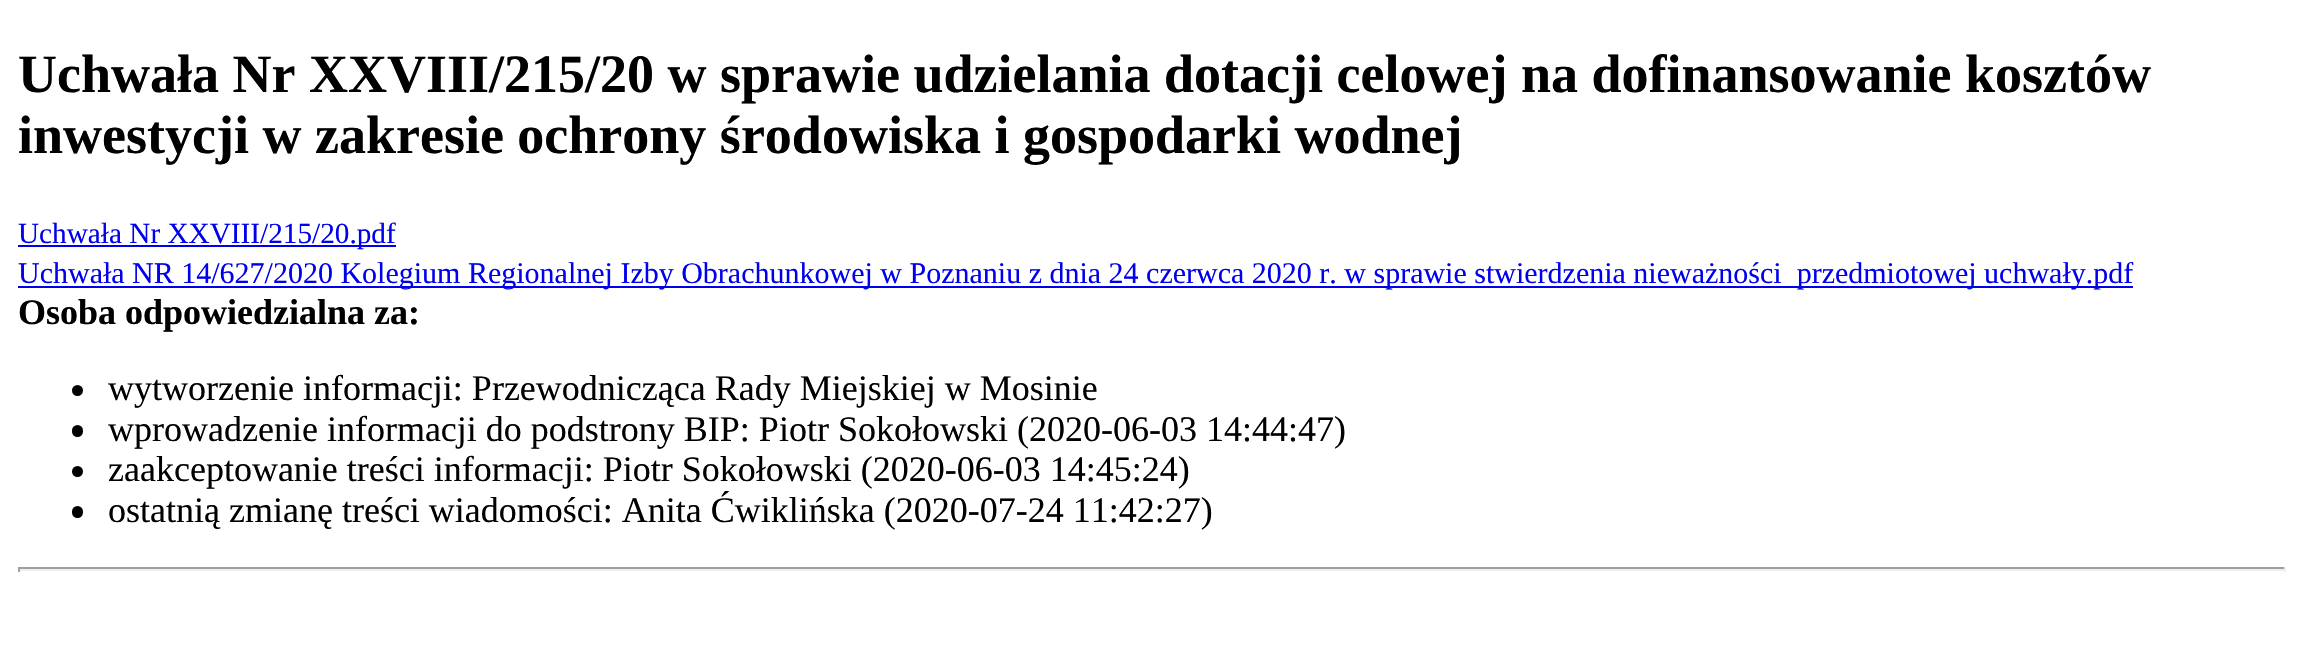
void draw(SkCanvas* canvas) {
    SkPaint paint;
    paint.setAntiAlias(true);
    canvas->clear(0xFFFFFFFF);
    SkFont font1(fontMgr->matchFamilyStyle("Liberation Serif", SkFontStyle::Bold()), 54);
    font1.setSubpixel(true);
    paint.setColor(0xFF000000);
    canvas->drawString("Uchwała Nr XXVIII/215/20 w sprawie udzielania dotacji celowej na dofinansowanie kosztów", 18, 92, font1, paint);
    canvas->drawString("inwestycji w zakresie ochrony środowiska i gospodarki wodnej", 18, 153, font1, paint);
    paint.setColor(0xFF0000EE);
    canvas->drawRect(SkRect::MakeXYWH(18, 245, 378, 2), paint);
    SkFont font2(fontMgr->matchFamilyStyle("Liberation Serif", SkFontStyle::Normal()), 29.25f);
    font2.setSubpixel(true);
    canvas->drawString("Uchwała Nr XXVIII/215/20.pdf", 18, 243, font2, paint);
    canvas->drawRect(SkRect::MakeXYWH(18, 286, 2115, 2), paint);
    SkFont font3(fontMgr->matchFamilyStyle("Liberation Serif", SkFontStyle::Normal()), 30);
    font3.setSubpixel(true);
    canvas->drawString("Uchwała NR 14/627/2020 Kolegium Regionalnej Izby Obrachunkowej w Poznaniu z dnia 24 czerwca 2020 r. w sprawie stwierdzenia nieważności  przedmiotowej uchwały.pdf", 18, 283, font3, paint);
    SkFont font4(fontMgr->matchFamilyStyle("Liberation Serif", SkFontStyle::Bold()), 36);
    font4.setSubpixel(true);
    paint.setColor(0xFF000000);
    canvas->drawString("Osoba odpowiedzialna za:", 18, 324, font4, paint);
    canvas->drawCircle(77.5f, 390.5f, 5.5f, paint);
    SkFont font5(fontMgr->matchFamilyStyle("Liberation Serif", SkFontStyle::Normal()), 36);
    font5.setSubpixel(true);
    canvas->drawString("wytworzenie informacji: Przewodnicząca Rady Miejskiej w Mosinie", 108, 400, font5, paint);
    canvas->drawRoundRect(SkRect::MakeXYWH(72, 425, 11, 12), 5.5f, 5.5f, paint);
    canvas->drawString("wprowadzenie informacji do podstrony BIP: Piotr Sokołowski (2020-06-03 14:44:47)", 108, 441, font5, paint);
    canvas->drawCircle(77.5f, 471.5f, 5.5f, paint);
    canvas->drawString("zaakceptowanie treści informacji: Piotr Sokołowski (2020-06-03 14:45:24)", 108, 481, font5, paint);
    canvas->drawRoundRect(SkRect::MakeXYWH(72, 506, 11, 12), 5.5f, 5.5f, paint);
    canvas->drawString("ostatnią zmianę treści wiadomości: Anita Ćwiklińska (2020-07-24 11:42:27)", 108, 522, font5, paint);
    paint.setColor(0xFF9F9F9F);
    canvas->drawRect(SkRect::MakeXYWH(18, 567, 2268, 2), paint);
    paint.setColor(0xFFEEEEEE);
    canvas->drawRect(SkRect::MakeXYWH(2284, 567, 2, 5), paint);
    canvas->drawRect(SkRect::MakeXYWH(18, 569, 2268, 2), paint);
    paint.setColor(0xFF9F9F9F);
    canvas->drawRect(SkRect::MakeXYWH(18, 567, 2, 5), paint);
}
